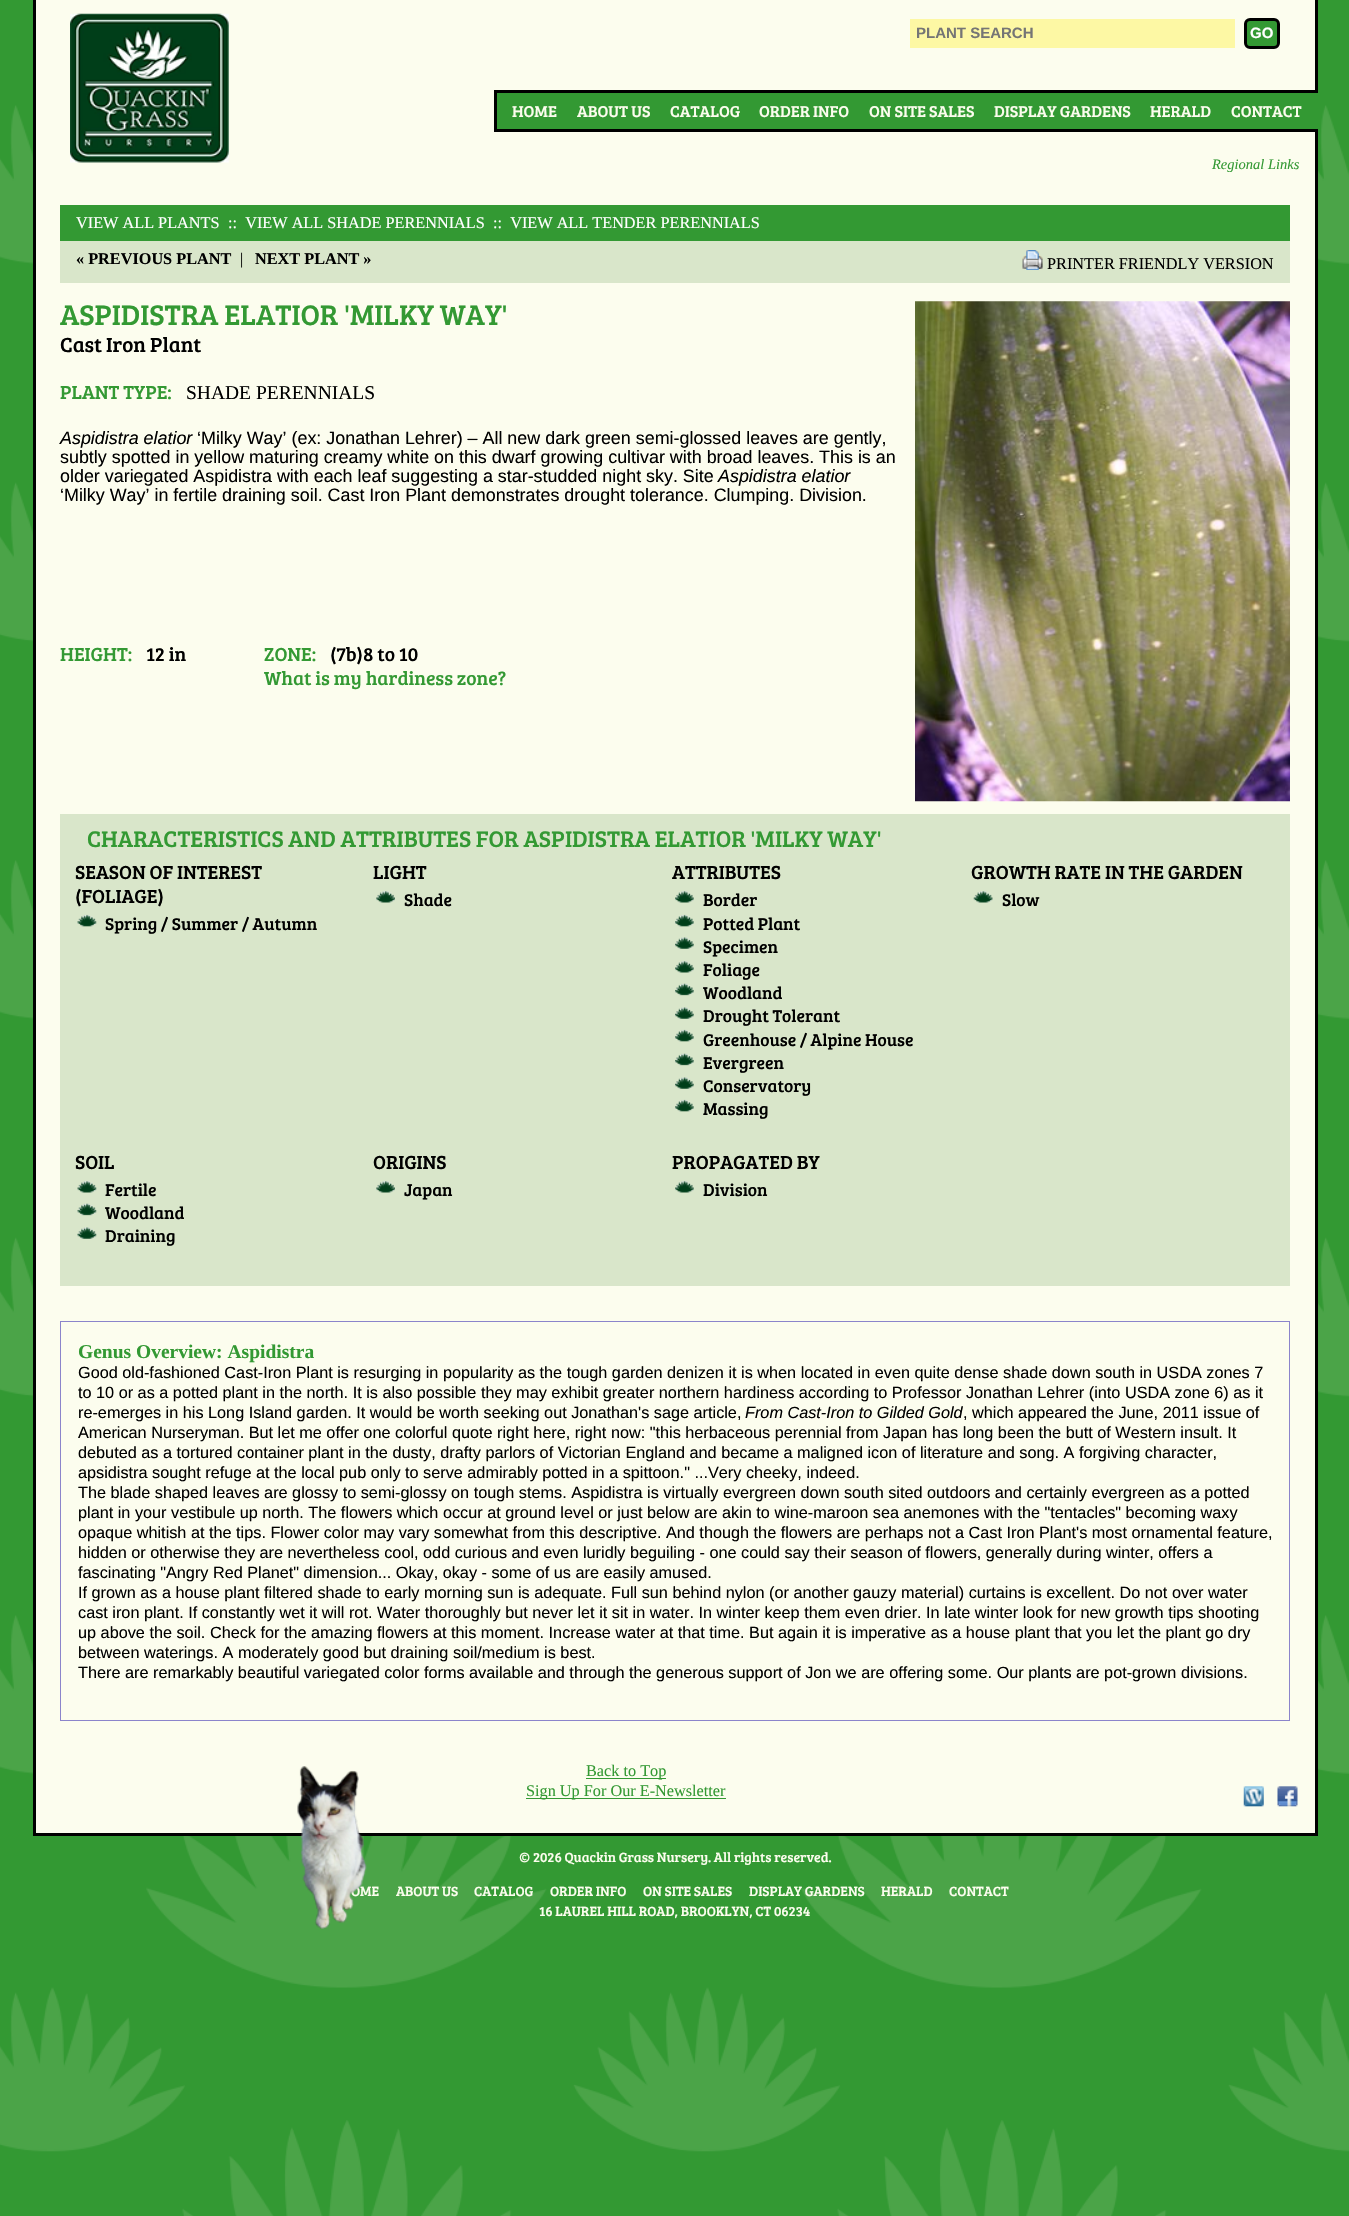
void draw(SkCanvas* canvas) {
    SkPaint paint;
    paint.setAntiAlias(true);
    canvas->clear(0xFFFFFFFF);
    canvas->drawImageRect(SkImages::DeferredFromEncodedData(SkData::MakeFromFileName("img1.png")), SkRect::MakeXYWH(0, 0, 1349, 2216), SkSamplingOptions());
    paint.setColor(0xFFFCFDEE);
    canvas->drawRect(SkRect::MakeXYWH(36, 0, 1279, 1833), paint);
    paint.setColor(0xFF000000);
    canvas->drawRect(SkRect::MakeXYWH(1315, 0, 3, 1835), paint);
    canvas->drawRect(SkRect::MakeXYWH(33, 1833, 1285, 3), paint);
    canvas->drawRect(SkRect::MakeXYWH(33, 0, 3, 1835), paint);
    canvas->drawImageRect(SkImages::DeferredFromEncodedData(SkData::MakeFromFileName("img2.png")), SkRect::MakeXYWH(70, 13, 159, 150), SkSamplingOptions());
    paint.setColor(0xFFFDF8A4);
    canvas->drawRect(SkRect::MakeXYWH(910, 19, 325, 29), paint);
    SkFont font1(fontMgr->matchFamilyStyle("Liberation Sans", SkFontStyle::Bold()), 15);
    font1.setSubpixel(true);
    paint.setColor(0xFF757575);
    canvas->drawString("PLANT SEARCH", 916, 38, font1, paint);
    paint.setColor(0xFF339933);
    canvas->drawRoundRect(SkRect::MakeXYWH(1245.5f, 19.5f, 33, 28), 4.5f, 4.5f, paint);
    paint.setStyle(SkPaint::kStroke_Style);
    paint.setStrokeWidth(3);
    paint.setColor(0xFF000000);
    canvas->drawRoundRect(SkRect::MakeXYWH(1245.5f, 19.5f, 33, 28), 4.5f, 4.5f, paint);
    paint.setStyle(SkPaint::kFill_Style);
    paint.setColor(0xFFFFFFFF);
    canvas->drawString("GO", 1250, 38, font1, paint);
    paint.setColor(0xFF339933);
    canvas->drawRect(SkRect::MakeXYWH(497, 93, 821, 36), paint);
    paint.setColor(0xFF000000);
    canvas->drawRect(SkRect::MakeXYWH(494, 90, 824, 3), paint);
    canvas->drawRect(SkRect::MakeXYWH(494, 129, 824, 3), paint);
    canvas->drawRect(SkRect::MakeXYWH(494, 90, 3, 41), paint);
    SkFont font2(fontMgr->matchFamilyStyle("Bree Serif", SkFontStyle::Normal()), 16.25f);
    font2.setSubpixel(true);
    paint.setColor(0xFFFCFDEE);
    canvas->drawString("HOME", 512, 117, font2, paint);
    canvas->drawString("ABOUT US", 577, 117, font2, paint);
    canvas->drawString("CATALOG", 670, 117, font2, paint);
    canvas->drawString("ORDER INFO", 759, 117, font2, paint);
    canvas->drawString("ON SITE SALES", 869, 117, font2, paint);
    canvas->drawString("DISPLAY GARDENS", 994, 117, font2, paint);
    canvas->drawString("HERALD", 1150, 117, font2, paint);
    canvas->drawString("CONTACT", 1231, 117, font2, paint);
    SkFont font3(fontMgr->matchFamilyStyle("Liberation Serif", SkFontStyle::Italic()), 14.5f);
    font3.setSubpixel(true);
    paint.setColor(0xFF339933);
    canvas->drawString("Regional Links", 1212, 169, font3, paint);
    canvas->drawRect(SkRect::MakeXYWH(60, 205, 1230, 36), paint);
    SkFont font4(fontMgr->matchFamilyStyle("Liberation Serif", SkFontStyle::Normal()), 16.25f);
    font4.setSubpixel(true);
    paint.setColor(0xFFFFFFFF);
    canvas->drawString("VIEW ALL PLANTS", 76, 228, font4, paint);
    canvas->drawString("::  VIEW ALL SHADE PERENNIALS", 228, 228, font4, paint);
    canvas->drawString("::  VIEW ALL TENDER PERENNIALS", 493, 228, font4, paint);
    paint.setColor(0xFFD9E6CA);
    canvas->drawRect(SkRect::MakeXYWH(60, 241, 1230, 42), paint);
    SkFont font5(fontMgr->matchFamilyStyle("Liberation Serif", SkFontStyle::Bold()), 16.25f);
    font5.setSubpixel(true);
    paint.setColor(0xFF000000);
    canvas->drawString("« PREVIOUS PLANT", 76, 264, font5, paint);
    canvas->drawString("|", 240, 264, font4, paint);
    canvas->drawString("NEXT PLANT »", 255, 264, font5, paint);
    canvas->drawImageRect(SkImages::DeferredFromEncodedData(SkData::MakeFromFileName("img3.png")), SkRect::MakeXYWH(1022, 250, 21, 20), SkSamplingOptions());
    canvas->drawString("PRINTER FRIENDLY VERSION", 1047, 269, font4, paint);
    SkFont font6(fontMgr->matchFamilyStyle("Bree Serif", SkFontStyle::Normal()), 29.25f);
    font6.setSubpixel(true);
    paint.setColor(0xFF339933);
    canvas->drawString("ASPIDISTRA ELATIOR 'MILKY WAY'", 60, 325, font6, paint);
    canvas->drawImageRect(SkImages::DeferredFromEncodedData(SkData::MakeFromFileName("img4.png")), SkRect::MakeXYWH(915, 301, 375, 501), SkSamplingOptions());
    SkFont font7(fontMgr->matchFamilyStyle("Bree Serif", SkFontStyle::Normal()), 21);
    font7.setSubpixel(true);
    paint.setColor(0xFF000000);
    canvas->drawString("Cast Iron Plant", 60, 352, font7, paint);
    SkFont font8(fontMgr->matchFamilyStyle("Bree Serif", SkFontStyle::Normal()), 19.5f);
    font8.setSubpixel(true);
    paint.setColor(0xFF339933);
    canvas->drawString("PLANT TYPE:", 60, 399, font8, paint);
    SkFont font9(fontMgr->matchFamilyStyle("Liberation Serif", SkFontStyle::Normal()), 19.5f);
    font9.setSubpixel(true);
    paint.setColor(0xFF000000);
    canvas->drawString("SHADE PERENNIALS", 186, 399, font9, paint);
    SkFont font10(fontMgr->matchFamilyStyle("Liberation Sans", SkFontStyle::Italic()), 17.9f);
    font10.setSubpixel(true);
    canvas->drawString("Aspidistra elatior", 60, 444, font10, paint);
    SkFont font11(fontMgr->matchFamilyStyle("Liberation Sans", SkFontStyle::Normal()), 17.9f);
    font11.setSubpixel(true);
    canvas->drawString("‘Milky Way’ (ex: Jonathan Lehrer) – All new dark green semi-glossed leaves are gently,", 197, 444, font11, paint);
    canvas->drawString("subtly spotted in yellow maturing creamy white on this dwarf growing cultivar with broad leaves. This is an", 60, 463, font11, paint);
    canvas->drawString("older variegated Aspidistra with each leaf suggesting a star-studded night sky. Site", 60, 482, font11, paint);
    canvas->drawString("Aspidistra elatior", 718, 482, font10, paint);
    canvas->drawString("‘Milky Way’ in fertile draining soil. Cast Iron Plant demonstrates drought tolerance. Clumping. Division.", 60, 501, font11, paint);
    paint.setColor(0xFF339933);
    canvas->drawString("HEIGHT:", 60, 661, font8, paint);
    paint.setColor(0xFF000000);
    canvas->drawString("12 in", 146, 661, font8, paint);
    paint.setColor(0xFF339933);
    canvas->drawString("ZONE:", 264, 661, font8, paint);
    paint.setColor(0xFF000000);
    canvas->drawString("(7b)8 to 10", 330, 661, font8, paint);
    paint.setColor(0xFF339933);
    canvas->drawString("What is my hardiness zone?", 264, 685, font8, paint);
    paint.setColor(0xFFD9E6CA);
    canvas->drawRect(SkRect::MakeXYWH(60, 814, 1230, 472), paint);
    SkFont font12(fontMgr->matchFamilyStyle("Bree Serif", SkFontStyle::Normal()), 23.4f);
    font12.setSubpixel(true);
    paint.setColor(0xFF339933);
    canvas->drawString("CHARACTERISTICS AND ATTRIBUTES FOR ASPIDISTRA ELATIOR 'MILKY WAY'", 87, 847, font12, paint);
    paint.setColor(0xFF000000);
    canvas->drawString("SEASON OF INTEREST", 75, 879, font8, paint);
    canvas->drawString("(FOLIAGE)", 75, 903, font8, paint);
    canvas->drawImageRect(SkImages::DeferredFromEncodedData(SkData::MakeFromFileName("img5.png")), SkRect::MakeXYWH(77, 914, 20, 13), SkSamplingOptions());
    SkFont font13(fontMgr->matchFamilyStyle("Bree Serif", SkFontStyle::Normal()), 17.5f);
    font13.setSubpixel(true);
    canvas->drawString("Spring / Summer / Autumn", 105, 930, font13, paint);
    canvas->drawString("LIGHT", 373, 879, font8, paint);
    canvas->drawImageRect(SkImages::DeferredFromEncodedData(SkData::MakeFromFileName("img6.png")), SkRect::MakeXYWH(376, 891, 19, 12), SkSamplingOptions());
    canvas->drawString("Shade", 404, 906, font13, paint);
    canvas->drawString("ATTRIBUTES", 672, 879, font8, paint);
    canvas->drawImageRect(SkImages::DeferredFromEncodedData(SkData::MakeFromFileName("img7.png")), SkRect::MakeXYWH(675, 891, 19, 12), SkSamplingOptions());
    canvas->drawString("Border", 703, 906, font13, paint);
    canvas->drawImageRect(SkImages::DeferredFromEncodedData(SkData::MakeFromFileName("img8.png")), SkRect::MakeXYWH(675, 914, 19, 13), SkSamplingOptions());
    canvas->drawString("Potted Plant", 703, 930, font13, paint);
    canvas->drawImageRect(SkImages::DeferredFromEncodedData(SkData::MakeFromFileName("img9.png")), SkRect::MakeXYWH(675, 937, 19, 12), SkSamplingOptions());
    canvas->drawString("Specimen", 703, 953, font13, paint);
    canvas->drawImageRect(SkImages::DeferredFromEncodedData(SkData::MakeFromFileName("img7.png")), SkRect::MakeXYWH(675, 961, 19, 12), SkSamplingOptions());
    canvas->drawString("Foliage", 703, 976, font13, paint);
    canvas->drawImageRect(SkImages::DeferredFromEncodedData(SkData::MakeFromFileName("img10.png")), SkRect::MakeXYWH(675, 983, 19, 13), SkSamplingOptions());
    canvas->drawString("Woodland", 703, 999, font13, paint);
    canvas->drawImageRect(SkImages::DeferredFromEncodedData(SkData::MakeFromFileName("img9.png")), SkRect::MakeXYWH(675, 1007, 19, 12), SkSamplingOptions());
    canvas->drawString("Drought Tolerant", 703, 1022, font13, paint);
    canvas->drawImageRect(SkImages::DeferredFromEncodedData(SkData::MakeFromFileName("img8.png")), SkRect::MakeXYWH(675, 1029, 19, 13), SkSamplingOptions());
    canvas->drawString("Greenhouse / Alpine House", 703, 1046, font13, paint);
    canvas->drawImageRect(SkImages::DeferredFromEncodedData(SkData::MakeFromFileName("img10.png")), SkRect::MakeXYWH(675, 1053, 19, 13), SkSamplingOptions());
    canvas->drawString("Evergreen", 703, 1069, font13, paint);
    canvas->drawImageRect(SkImages::DeferredFromEncodedData(SkData::MakeFromFileName("img9.png")), SkRect::MakeXYWH(675, 1077, 19, 12), SkSamplingOptions());
    canvas->drawString("Conservatory", 703, 1092, font13, paint);
    canvas->drawImageRect(SkImages::DeferredFromEncodedData(SkData::MakeFromFileName("img8.png")), SkRect::MakeXYWH(675, 1099, 19, 13), SkSamplingOptions());
    canvas->drawString("Massing", 703, 1115, font13, paint);
    canvas->drawString("GROWTH RATE IN THE GARDEN", 971, 879, font8, paint);
    canvas->drawImageRect(SkImages::DeferredFromEncodedData(SkData::MakeFromFileName("img11.png")), SkRect::MakeXYWH(973, 891, 20, 12), SkSamplingOptions());
    canvas->drawString("Slow", 1002, 906, font13, paint);
    canvas->drawString("SOIL", 75, 1169, font8, paint);
    canvas->drawImageRect(SkImages::DeferredFromEncodedData(SkData::MakeFromFileName("img12.png")), SkRect::MakeXYWH(77, 1181, 20, 12), SkSamplingOptions());
    canvas->drawString("Fertile", 105, 1196, font13, paint);
    canvas->drawImageRect(SkImages::DeferredFromEncodedData(SkData::MakeFromFileName("img13.png")), SkRect::MakeXYWH(77, 1203, 20, 13), SkSamplingOptions());
    canvas->drawString("Woodland", 105, 1219, font13, paint);
    canvas->drawImageRect(SkImages::DeferredFromEncodedData(SkData::MakeFromFileName("img14.png")), SkRect::MakeXYWH(77, 1227, 20, 12), SkSamplingOptions());
    canvas->drawString("Draining", 105, 1242, font13, paint);
    canvas->drawString("ORIGINS", 373, 1169, font8, paint);
    canvas->drawImageRect(SkImages::DeferredFromEncodedData(SkData::MakeFromFileName("img6.png")), SkRect::MakeXYWH(376, 1181, 19, 12), SkSamplingOptions());
    canvas->drawString("Japan", 404, 1196, font13, paint);
    canvas->drawString("PROPAGATED BY", 672, 1169, font8, paint);
    canvas->drawImageRect(SkImages::DeferredFromEncodedData(SkData::MakeFromFileName("img7.png")), SkRect::MakeXYWH(675, 1181, 19, 12), SkSamplingOptions());
    canvas->drawString("Division", 703, 1196, font13, paint);
    paint.setStyle(SkPaint::kStroke_Style);
    paint.setStrokeWidth(1);
    paint.setColor(0xFF8B84CB);
    canvas->drawRect(SkRect::MakeXYWH(60.5f, 1321.5f, 1229, 399), paint);
    SkFont font14(fontMgr->matchFamilyStyle("Liberation Serif", SkFontStyle::Bold()), 19.5f);
    font14.setSubpixel(true);
    paint.setStyle(SkPaint::kFill_Style);
    paint.setColor(0xFF339933);
    canvas->drawString("Genus Overview: Aspidistra", 78, 1358, font14, paint);
    SkFont font15(fontMgr->matchFamilyStyle("Liberation Sans", SkFontStyle::Normal()), 16.25f);
    font15.setSubpixel(true);
    paint.setColor(0xFF000000);
    canvas->drawString("Good old-fashioned Cast-Iron Plant is resurging in popularity as the tough garden denizen it is when located in even quite dense shade down south in USDA zones 7", 78, 1378, font15, paint);
    canvas->drawString("to 10 or as a potted plant in the north. It is also possible they may exhibit greater northern hardiness according to Professor Jonathan Lehrer (into USDA zone 6) as it", 78, 1398, font15, paint);
    canvas->drawString("re-emerges in his Long Island garden. It would be worth seeking out Jonathan's sage article,", 78, 1418, font15, paint);
    SkFont font16(fontMgr->matchFamilyStyle("Liberation Sans", SkFontStyle::Italic()), 16.25f);
    font16.setSubpixel(true);
    canvas->drawString("From Cast-Iron to Gilded Gold", 745, 1418, font16, paint);
    canvas->drawString(", which appeared the June, 2011 issue of", 963, 1418, font15, paint);
    canvas->drawString("American Nurseryman. But let me offer one colorful quote right here, right now: \"this herbaceous perennial from Japan has long been the butt of Western insult. It", 78, 1438, font15, paint);
    canvas->drawString("debuted as a tortured container plant in the dusty, drafty parlors of Victorian England and became a maligned icon of literature and song. A forgiving character,", 78, 1458, font15, paint);
    canvas->drawString("apsidistra sought refuge at the local pub only to serve admirably potted in a spittoon.\" ...Very cheeky, indeed.", 78, 1478, font15, paint);
    canvas->drawString("The blade shaped leaves are glossy to semi-glossy on tough stems. Aspidistra is virtually evergreen down south sited outdoors and certainly evergreen as a potted", 78, 1498, font15, paint);
    canvas->drawString("plant in your vestibule up north. The flowers which occur at ground level or just below are akin to wine-maroon sea anemones with the \"tentacles\" becoming waxy", 78, 1518, font15, paint);
    canvas->drawString("opaque whitish at the tips. Flower color may vary somewhat from this descriptive. And though the flowers are perhaps not a Cast Iron Plant's most ornamental feature,", 78, 1538, font15, paint);
    canvas->drawString("hidden or otherwise they are nevertheless cool, odd curious and even luridly beguiling - one could say their season of flowers, generally during winter, offers a", 78, 1558, font15, paint);
    canvas->drawString("fascinating \"Angry Red Planet\" dimension... Okay, okay - some of us are easily amused.", 78, 1578, font15, paint);
    canvas->drawString("If grown as a house plant filtered shade to early morning sun is adequate. Full sun behind nylon (or another gauzy material) curtains is excellent. Do not over water", 78, 1598, font15, paint);
    canvas->drawString("cast iron plant. If constantly wet it will rot. Water thoroughly but never let it sit in water. In winter keep them even drier. In late winter look for new growth tips shooting", 78, 1618, font15, paint);
    canvas->drawString("up above the soil. Check for the amazing flowers at this moment. Increase water at that time. But again it is imperative as a house plant that you let the plant go dry", 78, 1638, font15, paint);
    canvas->drawString("between waterings. A moderately good but draining soil/medium is best.", 78, 1658, font15, paint);
    canvas->drawString("There are remarkably beautiful variegated color forms available and through the generous support of Jon we are offering some. Our plants are pot-grown divisions.", 78, 1678, font15, paint);
    paint.setColor(0xFF339933);
    canvas->drawRect(SkRect::MakeXYWH(586, 1778, 80, 1), paint);
    canvas->drawString("Back to Top", 586, 1776, font4, paint);
    canvas->drawRect(SkRect::MakeXYWH(526, 1798, 200, 1), paint);
    canvas->drawString("Sign Up For Our E-Newsletter", 526, 1796, font4, paint);
    canvas->drawImageRect(SkImages::DeferredFromEncodedData(SkData::MakeFromFileName("img15.png")), SkRect::MakeXYWH(1243, 1786, 21, 21), SkSamplingOptions());
    canvas->drawImageRect(SkImages::DeferredFromEncodedData(SkData::MakeFromFileName("img16.png")), SkRect::MakeXYWH(1277, 1786, 21, 21), SkSamplingOptions());
    SkFont font17(fontMgr->matchFamilyStyle("Bree Serif", SkFontStyle::Normal()), 13.75f);
    font17.setSubpixel(true);
    paint.setColor(0xFFFCFDEE);
    canvas->drawString("© 2026 Quackin Grass Nursery. All rights reserved.", 519, 1862, font17, paint);
    canvas->drawString("OME", 351, 1896, font17, paint);
    canvas->drawImageRect(SkImages::DeferredFromEncodedData(SkData::MakeFromFileName("img17.png")), SkRect::MakeXYWH(297, 1766, 70, 163), SkSamplingOptions());
    canvas->drawString("ABOUT US", 396, 1896, font17, paint);
    canvas->drawString("CATALOG", 474, 1896, font17, paint);
    canvas->drawString("ORDER INFO", 550, 1896, font17, paint);
    canvas->drawString("ON SITE SALES", 643, 1896, font17, paint);
    canvas->drawString("DISPLAY GARDENS", 749, 1896, font17, paint);
    canvas->drawString("HERALD", 881, 1896, font17, paint);
    canvas->drawString("CONTACT", 949, 1896, font17, paint);
    canvas->drawString("16 LAUREL HILL ROAD, BROOKLYN, CT 06234", 539, 1916, font17, paint);
}
